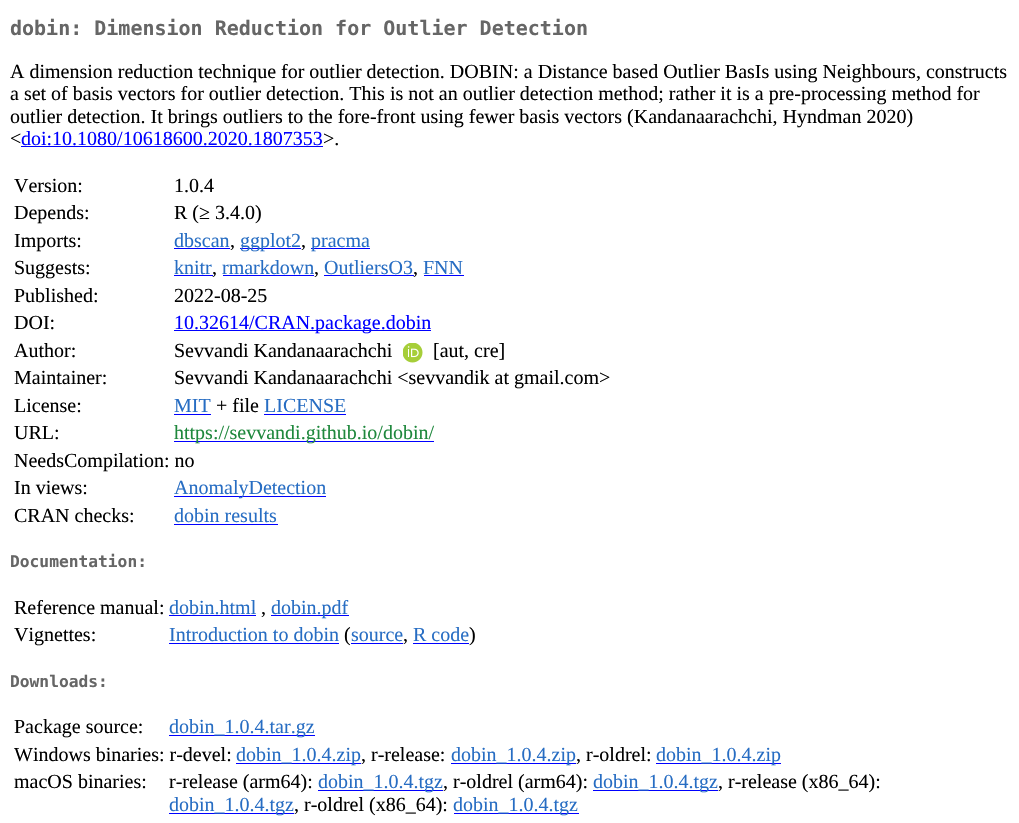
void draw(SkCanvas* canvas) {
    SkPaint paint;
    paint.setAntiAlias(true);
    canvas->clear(0xFFFFFFFF);
    SkFont font1(fontMgr->matchFamilyStyle("DejaVu Sans Mono", SkFontStyle::Bold()), 20);
    font1.setSubpixel(true);
    paint.setColor(0xFF666666);
    canvas->drawString("dobin: Dimension Reduction for Outlier Detection", 10, 35, font1, paint);
    SkFont font2(fontMgr->matchFamilyStyle("Liberation Serif", SkFontStyle::Normal()), 20);
    font2.setSubpixel(true);
    paint.setColor(0xFF000000);
    canvas->drawString("A dimension reduction technique for outlier detection. DOBIN: a Distance based Outlier BasIs using Neighbours, constructs", 10, 78, font2, paint);
    canvas->drawString("a set of basis vectors for outlier detection. This is not an outlier detection method; rather it is a pre-processing method for", 10, 100, font2, paint);
    canvas->drawString("outlier detection. It brings outliers to the fore-front using fewer basis vectors (Kandanaarachchi, Hyndman 2020)", 10, 123, font2, paint);
    canvas->drawString("<", 10, 145, font2, paint);
    paint.setColor(0xFF0000FF);
    canvas->drawString("doi:10.1080/10618600.2020.1807353", 21, 145, font2, paint);
    canvas->drawRect(SkRect::MakeXYWH(21, 146, 302, 1), paint);
    paint.setColor(0xFF000000);
    canvas->drawString(">.", 323, 145, font2, paint);
    canvas->drawString("Version:", 14, 192, font2, paint);
    canvas->drawString("1.0.4", 174, 192, font2, paint);
    canvas->drawString("Depends:", 14, 219, font2, paint);
    canvas->drawString("R (≥ 3.4.0)", 174, 219, font2, paint);
    canvas->drawString("Imports:", 14, 247, font2, paint);
    paint.setColor(0xFF276DC3);
    canvas->drawString("dbscan", 174, 247, font2, paint);
    paint.setColor(0xFF0000FF);
    canvas->drawRect(SkRect::MakeXYWH(174, 248, 56, 1), paint);
    paint.setColor(0xFF000000);
    canvas->drawString(",", 230, 247, font2, paint);
    paint.setColor(0xFF0000FF);
    canvas->drawRect(SkRect::MakeXYWH(240, 248, 61, 1), paint);
    paint.setColor(0xFF276DC3);
    canvas->drawString("ggplot2", 240, 247, font2, paint);
    paint.setColor(0xFF000000);
    canvas->drawString(",", 301, 247, font2, paint);
    paint.setColor(0xFF0000FF);
    canvas->drawRect(SkRect::MakeXYWH(311, 248, 59, 1), paint);
    paint.setColor(0xFF276DC3);
    canvas->drawString("pracma", 311, 247, font2, paint);
    paint.setColor(0xFF000000);
    canvas->drawString("Suggests:", 14, 274, font2, paint);
    paint.setColor(0xFF276DC3);
    canvas->drawString("knitr", 174, 274, font2, paint);
    paint.setColor(0xFF0000FF);
    canvas->drawRect(SkRect::MakeXYWH(174, 275, 39, 1), paint);
    paint.setColor(0xFF000000);
    canvas->drawString(",", 212, 274, font2, paint);
    paint.setColor(0xFF276DC3);
    canvas->drawString("rmarkdown", 222, 274, font2, paint);
    paint.setColor(0xFF0000FF);
    canvas->drawRect(SkRect::MakeXYWH(223, 275, 91, 1), paint);
    paint.setColor(0xFF000000);
    canvas->drawString(",", 314, 274, font2, paint);
    paint.setColor(0xFF276DC3);
    canvas->drawString("OutliersO3", 324, 274, font2, paint);
    paint.setColor(0xFF0000FF);
    canvas->drawRect(SkRect::MakeXYWH(324, 275, 90, 1), paint);
    paint.setColor(0xFF000000);
    canvas->drawString(",", 413, 274, font2, paint);
    paint.setColor(0xFF276DC3);
    canvas->drawString("FNN", 423, 274, font2, paint);
    paint.setColor(0xFF0000FF);
    canvas->drawRect(SkRect::MakeXYWH(424, 275, 40, 1), paint);
    paint.setColor(0xFF000000);
    canvas->drawString("Published:", 14, 302, font2, paint);
    canvas->drawString("2022-08-25", 174, 302, font2, paint);
    canvas->drawString("DOI:", 14, 329, font2, paint);
    paint.setColor(0xFF0000FF);
    canvas->drawRect(SkRect::MakeXYWH(174, 330, 257, 1), paint);
    canvas->drawString("10.32614/CRAN.package.dobin", 174, 329, font2, paint);
    paint.setColor(0xFF000000);
    canvas->drawString("Author:", 14, 357, font2, paint);
    canvas->drawString("Sevvandi Kandanaarachchi", 174, 357, font2, paint);
    canvas->drawImageRect(SkImages::DeferredFromEncodedData(SkData::MakeFromFileName("img1.png")), SkRect::MakeXYWH(403, 343, 20, 20), SkSamplingOptions());
    canvas->drawString("[aut, cre]", 433, 357, font2, paint);
    canvas->drawString("Maintainer:", 14, 384, font2, paint);
    canvas->drawString("Sevvandi Kandanaarachchi <sevvandik at gmail.com>", 174, 384, font2, paint);
    canvas->drawString("License:", 14, 412, font2, paint);
    paint.setColor(0xFF276DC3);
    canvas->drawString("MIT", 174, 412, font2, paint);
    paint.setColor(0xFF0000FF);
    canvas->drawRect(SkRect::MakeXYWH(174, 414, 37, 1), paint);
    paint.setColor(0xFF000000);
    canvas->drawString("+ file", 216, 412, font2, paint);
    paint.setColor(0xFF276DC3);
    canvas->drawString("LICENSE", 264, 412, font2, paint);
    paint.setColor(0xFF0000FF);
    canvas->drawRect(SkRect::MakeXYWH(264, 414, 82, 1), paint);
    paint.setColor(0xFF000000);
    canvas->drawString("URL:", 14, 439, font2, paint);
    paint.setColor(0xFF0000FF);
    canvas->drawRect(SkRect::MakeXYWH(174, 441, 260, 1), paint);
    paint.setColor(0xFF1F883D);
    canvas->drawString("https://sevvandi.github.io/dobin/", 174, 439, font2, paint);
    paint.setColor(0xFF000000);
    canvas->drawString("NeedsCompilation: no", 14, 467, font2, paint);
    canvas->drawString("In views:", 14, 494, font2, paint);
    paint.setColor(0xFF0000FF);
    canvas->drawRect(SkRect::MakeXYWH(174, 496, 152, 1), paint);
    paint.setColor(0xFF276DC3);
    canvas->drawString("AnomalyDetection", 174, 494, font2, paint);
    paint.setColor(0xFF000000);
    canvas->drawString("CRAN checks:", 14, 522, font2, paint);
    paint.setColor(0xFF276DC3);
    canvas->drawString("dobin results", 174, 522, font2, paint);
    paint.setColor(0xFF0000FF);
    canvas->drawRect(SkRect::MakeXYWH(174, 524, 104, 1), paint);
    SkFont font3(fontMgr->matchFamilyStyle("DejaVu Sans Mono", SkFontStyle::Bold()), 16.25f);
    font3.setSubpixel(true);
    paint.setColor(0xFF666666);
    canvas->drawString("Documentation:", 10, 567, font3, paint);
    paint.setColor(0xFF000000);
    canvas->drawString("Reference manual:", 14, 614, font2, paint);
    paint.setColor(0xFF276DC3);
    canvas->drawString("dobin.html", 169, 614, font2, paint);
    paint.setColor(0xFF0000FF);
    canvas->drawRect(SkRect::MakeXYWH(169, 615, 87, 1), paint);
    paint.setColor(0xFF000000);
    canvas->drawString(",", 261, 614, font2, paint);
    paint.setColor(0xFF0000FF);
    canvas->drawRect(SkRect::MakeXYWH(271, 615, 78, 1), paint);
    paint.setColor(0xFF276DC3);
    canvas->drawString("dobin.pdf", 271, 614, font2, paint);
    paint.setColor(0xFF000000);
    canvas->drawString("Vignettes:", 14, 641, font2, paint);
    paint.setColor(0xFF276DC3);
    canvas->drawString("Introduction to dobin", 169, 641, font2, paint);
    paint.setColor(0xFF0000FF);
    canvas->drawRect(SkRect::MakeXYWH(169, 643, 170, 1), paint);
    paint.setColor(0xFF000000);
    canvas->drawString("(", 344, 641, font2, paint);
    paint.setColor(0xFF276DC3);
    canvas->drawString("source", 351, 641, font2, paint);
    paint.setColor(0xFF0000FF);
    canvas->drawRect(SkRect::MakeXYWH(351, 643, 52, 1), paint);
    paint.setColor(0xFF000000);
    canvas->drawString(",", 403, 641, font2, paint);
    paint.setColor(0xFF276DC3);
    canvas->drawString("R code", 413, 641, font2, paint);
    paint.setColor(0xFF0000FF);
    canvas->drawRect(SkRect::MakeXYWH(413, 643, 56, 1), paint);
    paint.setColor(0xFF000000);
    canvas->drawString(")", 469, 641, font2, paint);
    paint.setColor(0xFF666666);
    canvas->drawString("Downloads:", 10, 687, font3, paint);
    paint.setColor(0xFF000000);
    canvas->drawString("Package source:", 14, 733, font2, paint);
    paint.setColor(0xFF0000FF);
    canvas->drawRect(SkRect::MakeXYWH(169, 735, 146, 1), paint);
    paint.setColor(0xFF276DC3);
    canvas->drawString("dobin_1.0.4.tar.gz", 169, 733, font2, paint);
    paint.setColor(0xFF000000);
    canvas->drawString("Windows binaries: r-devel:", 14, 761, font2, paint);
    paint.setColor(0xFF0000FF);
    canvas->drawRect(SkRect::MakeXYWH(236, 763, 125, 1), paint);
    paint.setColor(0xFF276DC3);
    canvas->drawString("dobin_1.0.4.zip", 236, 761, font2, paint);
    paint.setColor(0xFF000000);
    canvas->drawString(", r-release:", 361, 761, font2, paint);
    paint.setColor(0xFF0000FF);
    canvas->drawRect(SkRect::MakeXYWH(451, 763, 125, 1), paint);
    paint.setColor(0xFF276DC3);
    canvas->drawString("dobin_1.0.4.zip", 451, 761, font2, paint);
    paint.setColor(0xFF000000);
    canvas->drawString(", r-oldrel:", 576, 761, font2, paint);
    paint.setColor(0xFF0000FF);
    canvas->drawRect(SkRect::MakeXYWH(656, 763, 125, 1), paint);
    paint.setColor(0xFF276DC3);
    canvas->drawString("dobin_1.0.4.zip", 656, 761, font2, paint);
    paint.setColor(0xFF000000);
    canvas->drawString("macOS binaries:", 14, 788, font2, paint);
    canvas->drawString("r-release (arm64):", 169, 788, font2, paint);
    paint.setColor(0xFF0000FF);
    canvas->drawRect(SkRect::MakeXYWH(318, 790, 125, 1), paint);
    paint.setColor(0xFF276DC3);
    canvas->drawString("dobin_1.0.4.tgz", 318, 788, font2, paint);
    paint.setColor(0xFF000000);
    canvas->drawString(", r-oldrel (arm64):", 443, 788, font2, paint);
    paint.setColor(0xFF0000FF);
    canvas->drawRect(SkRect::MakeXYWH(593, 790, 125, 1), paint);
    paint.setColor(0xFF276DC3);
    canvas->drawString("dobin_1.0.4.tgz", 593, 788, font2, paint);
    paint.setColor(0xFF000000);
    canvas->drawString(", r-release (x86_64):", 718, 788, font2, paint);
    paint.setColor(0xFF0000FF);
    canvas->drawRect(SkRect::MakeXYWH(169, 813, 125, 1), paint);
    paint.setColor(0xFF276DC3);
    canvas->drawString("dobin_1.0.4.tgz", 169, 811, font2, paint);
    paint.setColor(0xFF000000);
    canvas->drawString(", r-oldrel (x86_64):", 294, 811, font2, paint);
    paint.setColor(0xFF0000FF);
    canvas->drawRect(SkRect::MakeXYWH(454, 813, 125, 1), paint);
    paint.setColor(0xFF276DC3);
    canvas->drawString("dobin_1.0.4.tgz", 453, 811, font2, paint);
}
